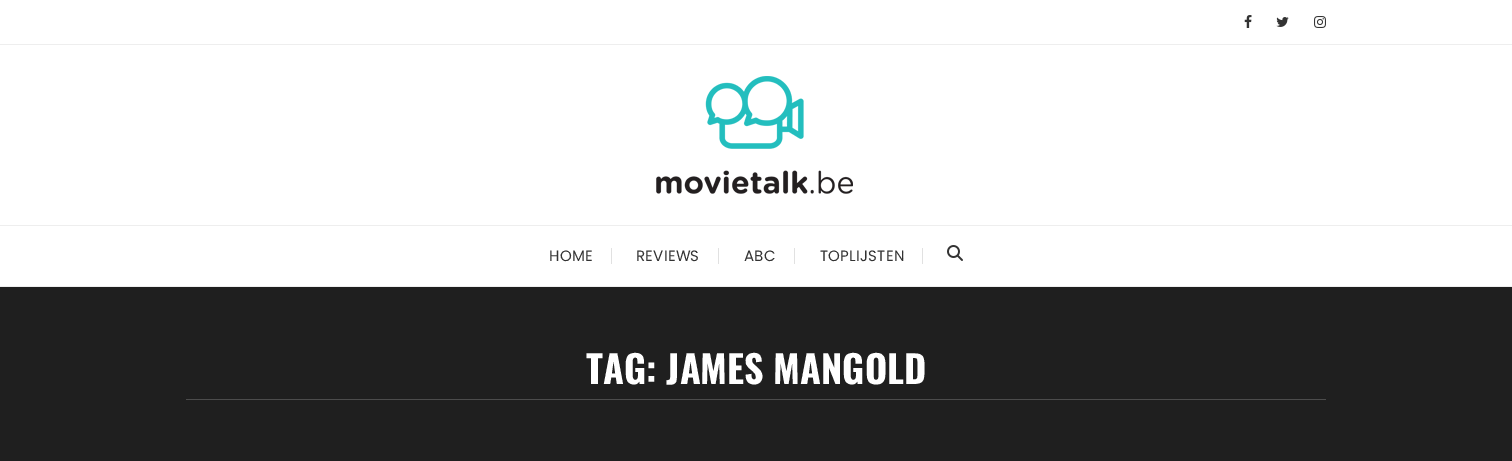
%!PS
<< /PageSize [1512 461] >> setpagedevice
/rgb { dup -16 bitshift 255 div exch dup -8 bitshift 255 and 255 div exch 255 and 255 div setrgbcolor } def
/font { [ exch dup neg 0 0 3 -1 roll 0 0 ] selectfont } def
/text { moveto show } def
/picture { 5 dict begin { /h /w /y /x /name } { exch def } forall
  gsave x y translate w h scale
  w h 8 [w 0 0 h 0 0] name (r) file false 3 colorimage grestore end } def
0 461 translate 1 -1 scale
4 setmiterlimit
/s1 { /Oswald-Bold 38 font 16#FFFFFF rgb } def
16#FFFFFF rgb
0 0 1512 461 rectfill
16#EEEEEE rgb
0 44 1512 1 rectfill
(pic1.raw) 1244 15 8 13 picture
(pic2.raw) 1276 17 13 10 picture
(pic3.raw) 1314 16 12 12 picture
(pic4.raw) 656 76 197 118 picture
0 225 1512 1 rectfill
0 286 1512 1 rectfill
/Poppins-Regular 15 font
16#333333 rgb
549 261 moveto 0.25 0 (HOME) ashow
16#E1E1E1 rgb
611 248 1 16 rectfill
16#333333 rgb
636 261 moveto 0.25 0 (REVIEWS) ashow
16#E1E1E1 rgb
718 248 1 16 rectfill
16#333333 rgb
744 261 moveto 0.25 0 (ABC) ashow
16#E1E1E1 rgb
794 248 1 16 rectfill
16#333333 rgb
820 261 moveto 0.25 0 (TOPLIJSTEN) ashow
16#E1E1E1 rgb
922 248 1 16 rectfill
(pic5.raw) 947 245 16 16 picture
16#1F1F1F rgb
0 287 1512 174 rectfill
16#4C4C4C rgb
186 399 1140 1 rectfill
s1
(TAG: JAMES MANGOLD) 586 384 text
showpage
